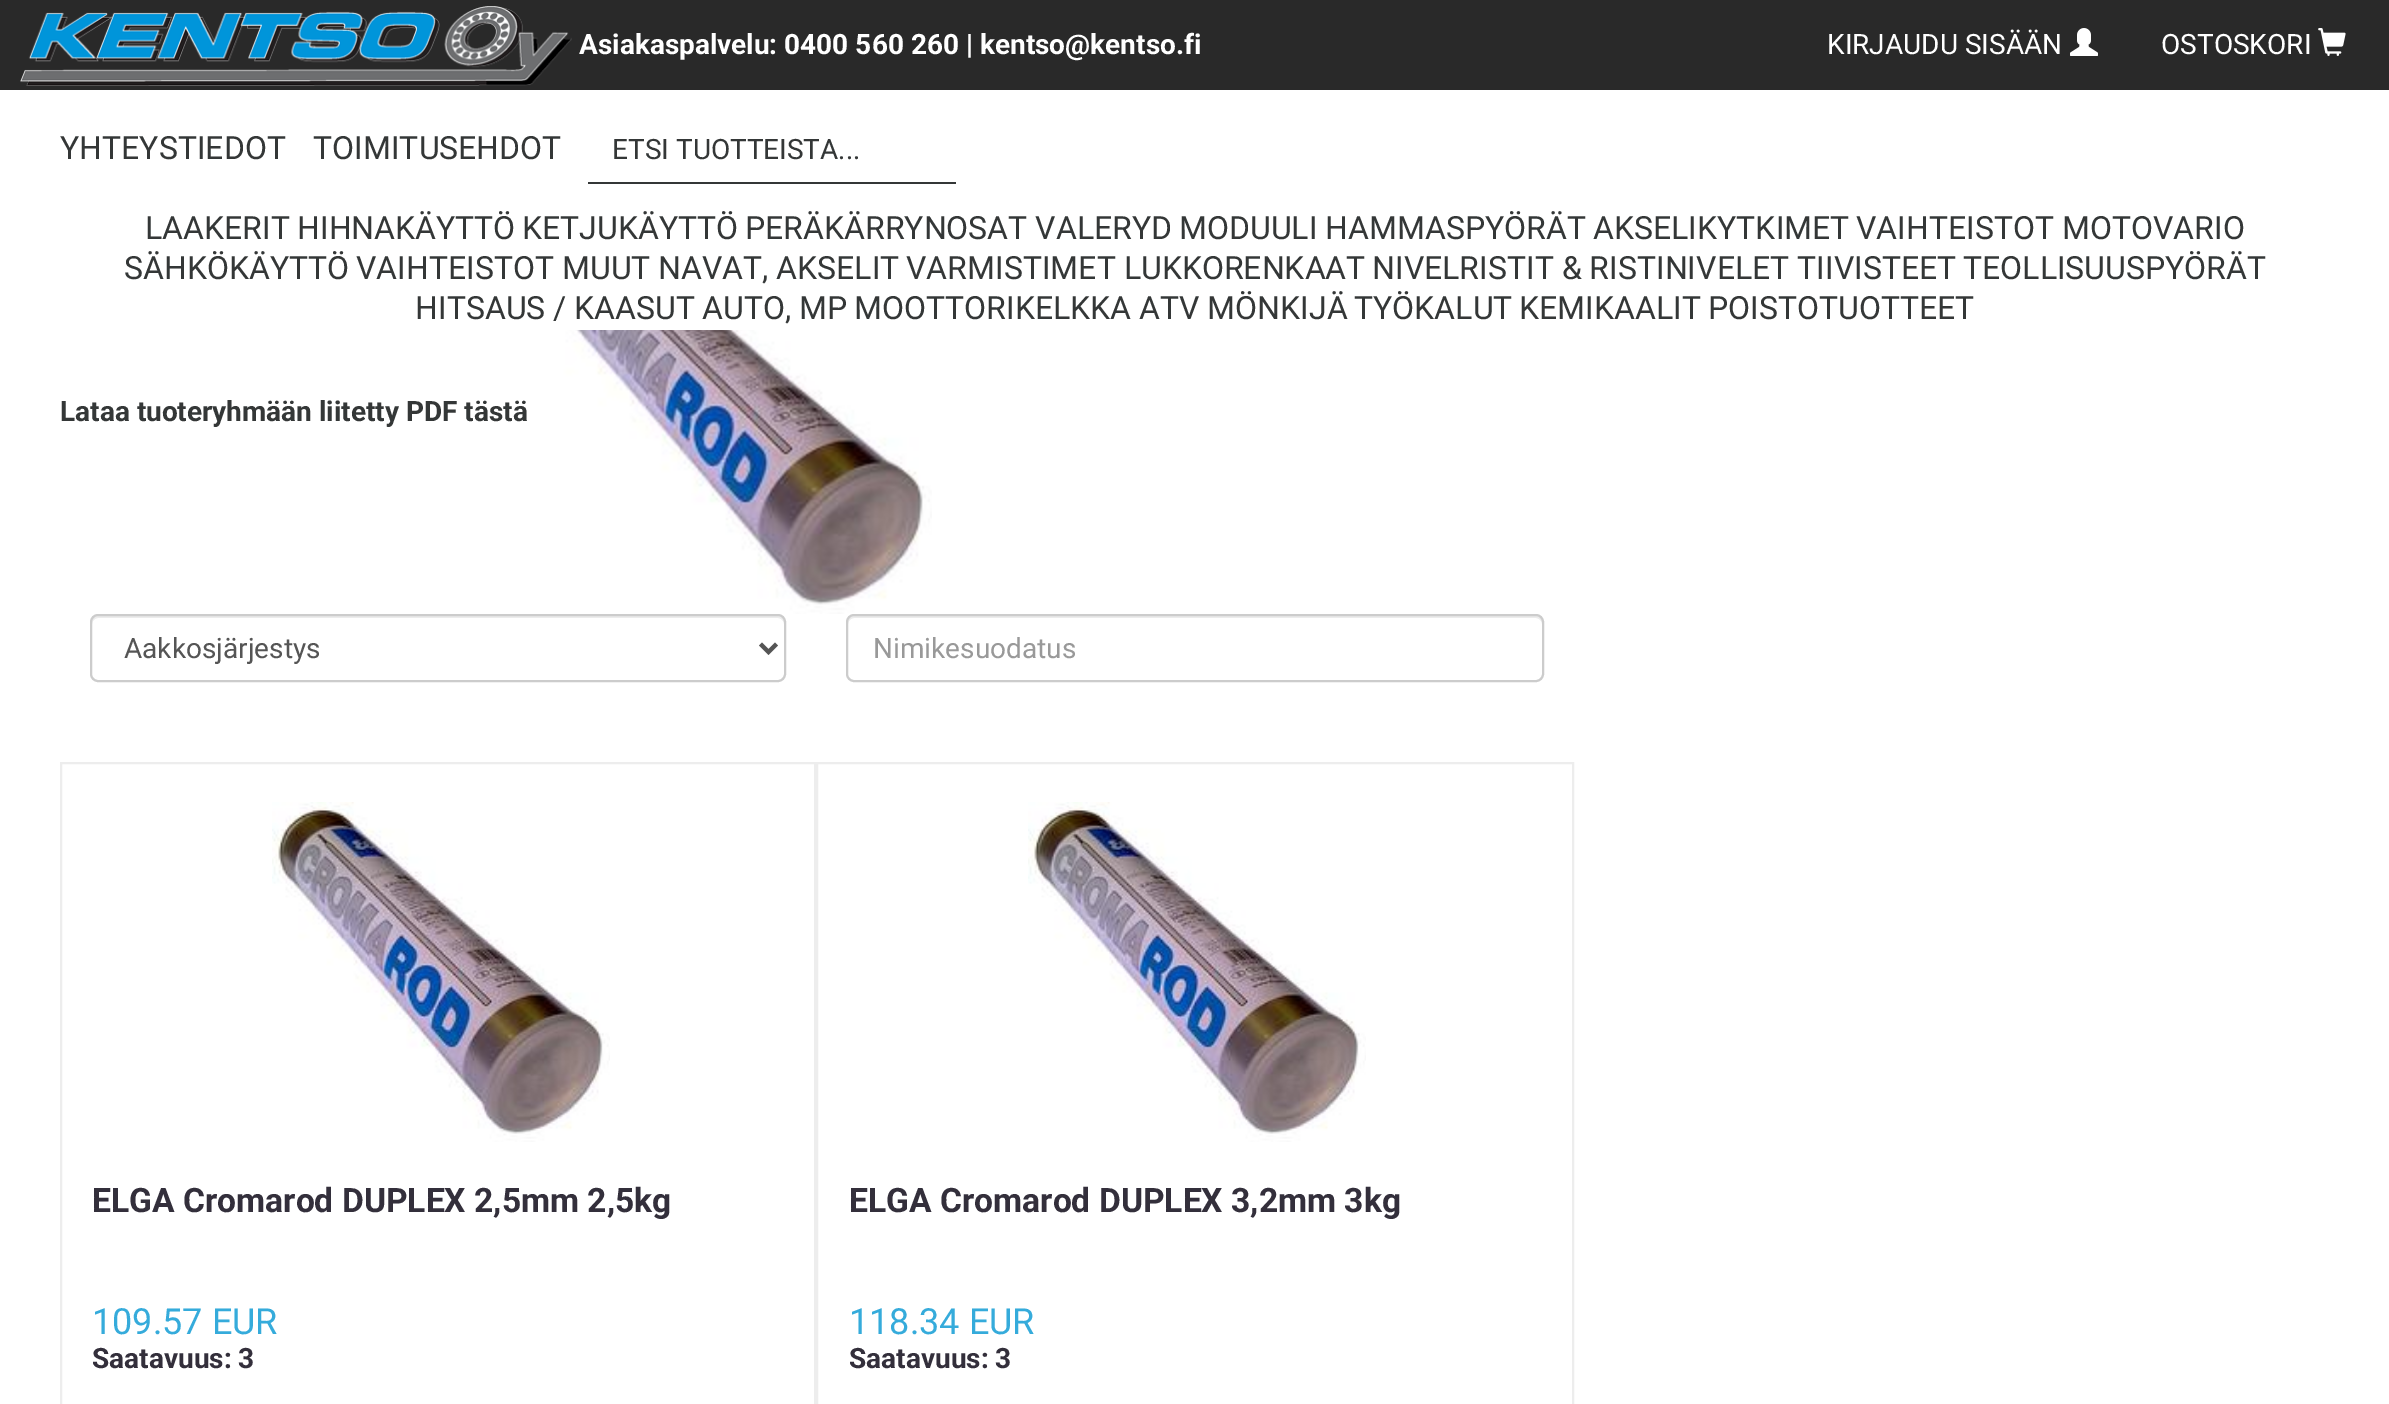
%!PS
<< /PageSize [2389 1404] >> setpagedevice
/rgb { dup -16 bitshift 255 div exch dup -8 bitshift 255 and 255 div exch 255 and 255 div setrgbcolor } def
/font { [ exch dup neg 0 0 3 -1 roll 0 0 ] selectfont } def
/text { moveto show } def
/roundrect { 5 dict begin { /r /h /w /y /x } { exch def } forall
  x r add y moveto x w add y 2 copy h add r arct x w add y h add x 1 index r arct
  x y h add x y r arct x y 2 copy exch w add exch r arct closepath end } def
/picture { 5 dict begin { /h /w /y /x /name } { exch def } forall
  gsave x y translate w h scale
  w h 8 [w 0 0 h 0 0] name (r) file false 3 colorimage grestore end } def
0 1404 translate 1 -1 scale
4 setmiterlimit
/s1 { /Roboto-Bold 28 font 16#FFFFFF rgb } def
/s2 { /Roboto-Regular 28 font 16#FFFFFF rgb } def
/s3 { /Roboto-Regular 32 font 16#343737 rgb } def
/s4 { /Roboto-Regular 28 font 16#343737 rgb } def
/s5 { /Roboto-Bold 28 font 16#343737 rgb } def
/s6 { /Roboto-Regular 28 font 16#555555 rgb } def
/s7 { /Roboto-Regular 28 font 16#999999 rgb } def
/s8 { /Roboto-Bold 33.6 font 16#332F3B rgb } def
/s9 { /Roboto-Regular 36 font 16#35ABDB rgb } def
/s10 { /Roboto-Bold 28 font 16#332F3B rgb } def
16#FFFFFF rgb
0 0 2389 1404 rectfill
16#292929 rgb
0 0 2389 90 rectfill
(pic1.raw) 20 6 552 80 picture
s1
(Asiakaspalvelu: 0400 560 260 | kentso@kentso.fi) 579 54 text
s2
(KIRJAUDU SISÄÄN) 1827 54 text
(pic2.raw) 2070 28 28 28 picture
(OSTOSKORI) 2161 54 text
(pic3.raw) 2318 28 28 28 picture
s3
(YHTEYSTIEDOT) 60 159 text
(TOIMITUSEHDOT) 313 159 text
588 182 368 2 rectfill
s4
(ETSI TUOTTEISTA...) 612 159 text
s3
(LAAKERIT) 145 239 text
(HIHNAKÄYTTÖ) 297 239 text
(KETJUKÄYTTÖ) 522 239 text
(PERÄKÄRRYNOSAT VALERYD) 745 239 text
(MODUULI HAMMASPYÖRÄT) 1179 239 text
(AKSELIKYTKIMET) 1593 239 text
(VAIHTEISTOT MOTOVARIO) 1856 239 text
(SÄHKÖKÄYTTÖ) 124 279 text
(VAIHTEISTOT MUUT) 356 279 text
(NAVAT, AKSELIT) 658 279 text
(VARMISTIMET LUKKORENKAAT) 906 279 text
(NIVELRISTIT & RISTINIVELET) 1372 279 text
(TIIVISTEET) 1797 279 text
(TEOLLISUUSPYÖRÄT) 1963 279 text
(HITSAUS / KAASUT) 415 319 text
(AUTO, MP) 702 319 text
(MOOTTORIKELKKA) 854 319 text
(ATV MÖNKIJÄ) 1139 319 text
(TYÖKALUT) 1354 319 text
(KEMIKAALIT) 1519 319 text
(POISTOTUOTTEET) 1708 319 text
s5
(Lataa tuoteryhmään liitetty PDF tästä) 60 421 text
(pic4.raw) 534 330 398 284 picture
16#ECECEC rgb
98 618 moveto 778 618 lineto 781 618 784 621 784 624 curveto 784 622 lineto 784 619 781 616 778 616 curveto 98 616 lineto 95 616 92 619 92 622 curveto 92 624 lineto 92 621 95 618 98 618 curveto closepath fill
16#CCCCCC rgb
2 setlinewidth
91 615 694 66 7 roundrect stroke
16#555555 rgb
4 setlinewidth
760.5 644 moveto 768.5 652 lineto 776.5 644 lineto stroke
s6
(Aakkosjärjestys) 124 658 text
16#ECECEC rgb
854 618 moveto 1536 618 lineto 1539 618 1542 621 1542 624 curveto 1542 622 lineto 1542 619 1539 616 1536 616 curveto 854 616 lineto 851 616 848 619 848 622 curveto 848 624 lineto 848 621 851 618 854 618 curveto closepath fill
16#CCCCCC rgb
2 setlinewidth
847 615 696 66 7 roundrect stroke
s7
(Nimikesuodatus) 873 658 text
16#EDEDED rgb
61 763 754 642 rectstroke
(pic5.raw) 272 802 338 340 picture
s8
(ELGA Cromarod DUPLEX 2,5mm 2,5kg) 92 1212 text
s9
(109.57 EUR) 92 1334 text
s10
(Saatavuus: 3) 92 1368 text
16#EDEDED rgb
817 763 756 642 rectstroke
(pic6.raw) 1028 802 338 340 picture
s8
(ELGA Cromarod DUPLEX 3,2mm 3kg) 849 1212 text
s9
(118.34 EUR) 849 1334 text
s10
(Saatavuus: 3) 849 1368 text
showpage
